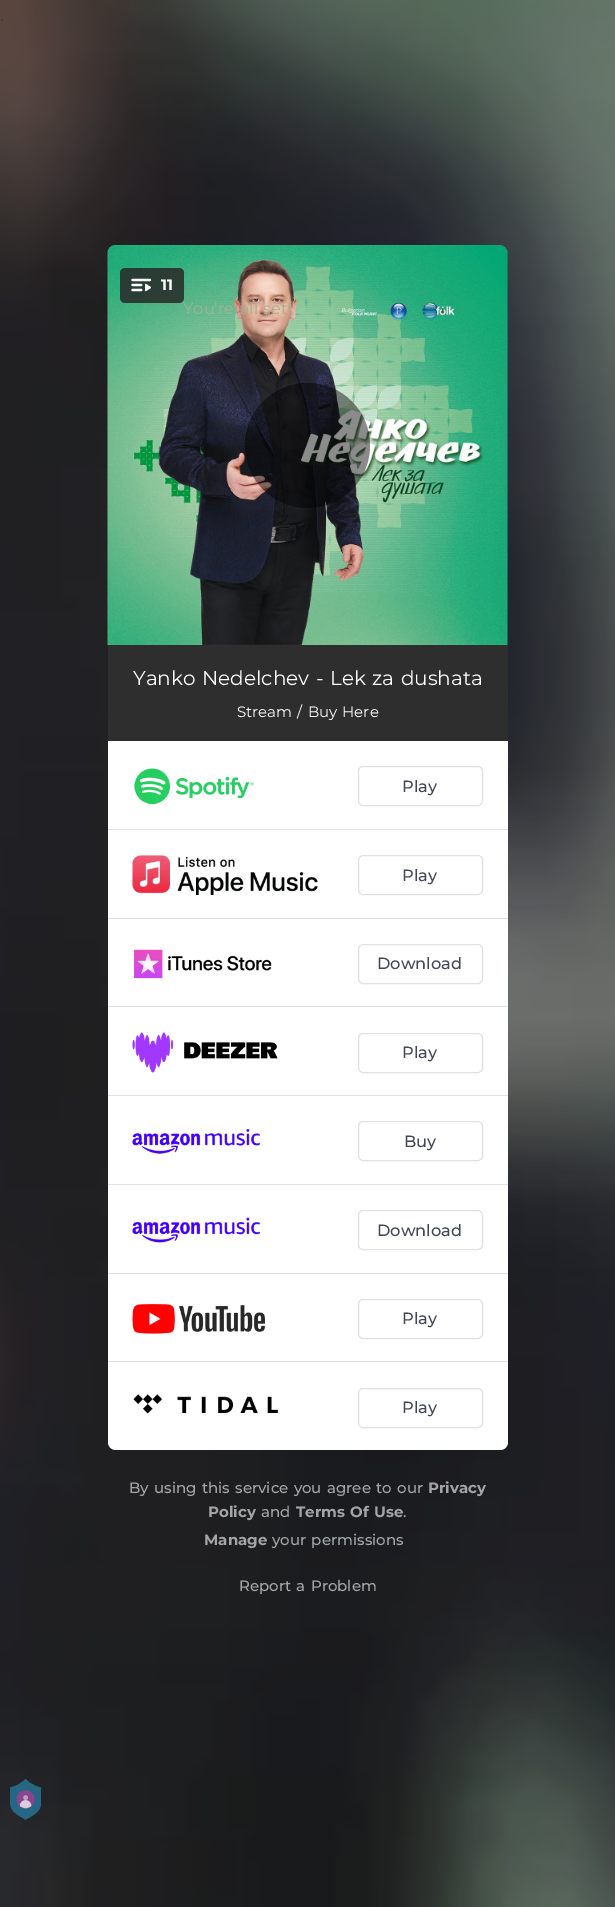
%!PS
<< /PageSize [615 1907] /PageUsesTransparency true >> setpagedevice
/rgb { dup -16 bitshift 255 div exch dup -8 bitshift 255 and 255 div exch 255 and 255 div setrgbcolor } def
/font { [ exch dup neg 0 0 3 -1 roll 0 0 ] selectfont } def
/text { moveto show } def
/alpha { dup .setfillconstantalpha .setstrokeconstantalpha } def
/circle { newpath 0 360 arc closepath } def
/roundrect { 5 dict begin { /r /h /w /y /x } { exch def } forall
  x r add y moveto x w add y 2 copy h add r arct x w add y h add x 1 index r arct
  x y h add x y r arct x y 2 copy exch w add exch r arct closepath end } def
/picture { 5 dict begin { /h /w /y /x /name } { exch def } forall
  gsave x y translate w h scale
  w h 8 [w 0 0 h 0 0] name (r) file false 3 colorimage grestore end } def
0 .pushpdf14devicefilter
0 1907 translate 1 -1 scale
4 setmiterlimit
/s1 { /Montserrat-Bold 15 font 16#FFFFFF rgb } def
/s2 { /Montserrat-Medium 16.25 font 16#414754 rgb } def
/s3 { /Montserrat-Bold 15 font 16#A4A5A6 rgb } def
/s4 { /Montserrat-Medium 15 font 16#A4A5A6 rgb } def
16#FFFFFF rgb
0 0 615 1907 rectfill
(pic1.raw) 0 0 615 1907 picture
(pic2.raw) 107 245 401 400 picture
/Montserrat-Regular 16.25 font
16#A2B092 rgb
183 314 moveto 1.25 0 32 (You're all set!) widthshow
0.85 alpha
16#282828 rgb
120 268 64 35 5 roundrect fill
1 alpha
(pic3.raw) 131 278 20 14 picture
s1
(11) 161 290 text
0.45 alpha
16#000000 rgb
307.5 445.5 62.5 circle fill
1 alpha
16#2E2E2E rgb
108 645 400 96 rectfill
/Montserrat-Regular 20 font
16#FFFFFF rgb
133 685 moveto 1.25 0 32 (Yanko Nedelchev - Lek za dushata) widthshow
/Montserrat-Regular 15 font
237 717 moveto 1.25 0 32 (Stream / Buy Here) widthshow
108 741 moveto 508 741 lineto 508 1442 lineto 508 1446.5 504.5 1450 500 1450 curveto 116 1450 lineto 111.5 1450 108 1446.5 108 1442 curveto closepath fill
16#E1E1E4 rgb
108 829 400 1 rectfill
(pic4.raw) 134 768 120 37 picture
358.5 766.5 124 39 4.5 roundrect stroke
s2
(Play) 402 792 text
16#E1E1E4 rgb
108 918 400 1 rectfill
(pic5.raw) 132 855 186 40 picture
358.5 855.5 124 39 4.5 roundrect stroke
s2
(Play) 402 881 text
16#E1E1E4 rgb
108 1006 400 1 rectfill
(pic6.raw) 133 949 139 30 picture
358.5 944.5 124 39 4.5 roundrect stroke
s2
(Download) 377 969 text
16#E1E1E4 rgb
108 1095 400 1 rectfill
(pic7.raw) 132 1032 146 41 picture
358.5 1033.5 124 39 4.5 roundrect stroke
s2
(Play) 402 1058 text
16#E1E1E4 rgb
108 1184 400 1 rectfill
(pic8.raw) 132 1128 128 26 picture
358.5 1121.5 124 39 4.5 roundrect stroke
s2
(Buy) 404 1147 text
16#E1E1E4 rgb
108 1273 400 1 rectfill
(pic9.raw) 132 1217 128 26 picture
358.5 1210.5 124 39 4.5 roundrect stroke
s2
(Download) 377 1236 text
16#E1E1E4 rgb
108 1361 400 1 rectfill
(pic10.raw) 132 1303 133 31 picture
358.5 1299.5 124 39 4.5 roundrect stroke
s2
(Play) 402 1324 text
(pic11.raw) 133 1394 145 20 picture
16#E1E1E4 rgb
358.5 1388.5 124 39 4.5 roundrect stroke
s2
(Play) 402 1413 text
/Montserrat-Medium 15 font
16#A4A5A6 rgb
129 1493 moveto 1.25 0 32 (By using this service you agree to our) widthshow
s3
(Privacy) 428 1493 text
(Policy) 208 1517 text
s4
(and) 261 1517 text
/Montserrat-Bold 15 font
296 1517 moveto 1.25 0 32 (Terms Of Use) widthshow
s4
(.) 403 1517 text
s3
(Manage) 204 1545 text
/Montserrat-Medium 15 font
272 1545 moveto 1.25 0 32 (your permissions) widthshow
239 1591 moveto 1.25 0 32 (Report a Problem) widthshow
(pic12.raw) 10 1779 31 41 picture
.poppdf14devicefilter showpage
